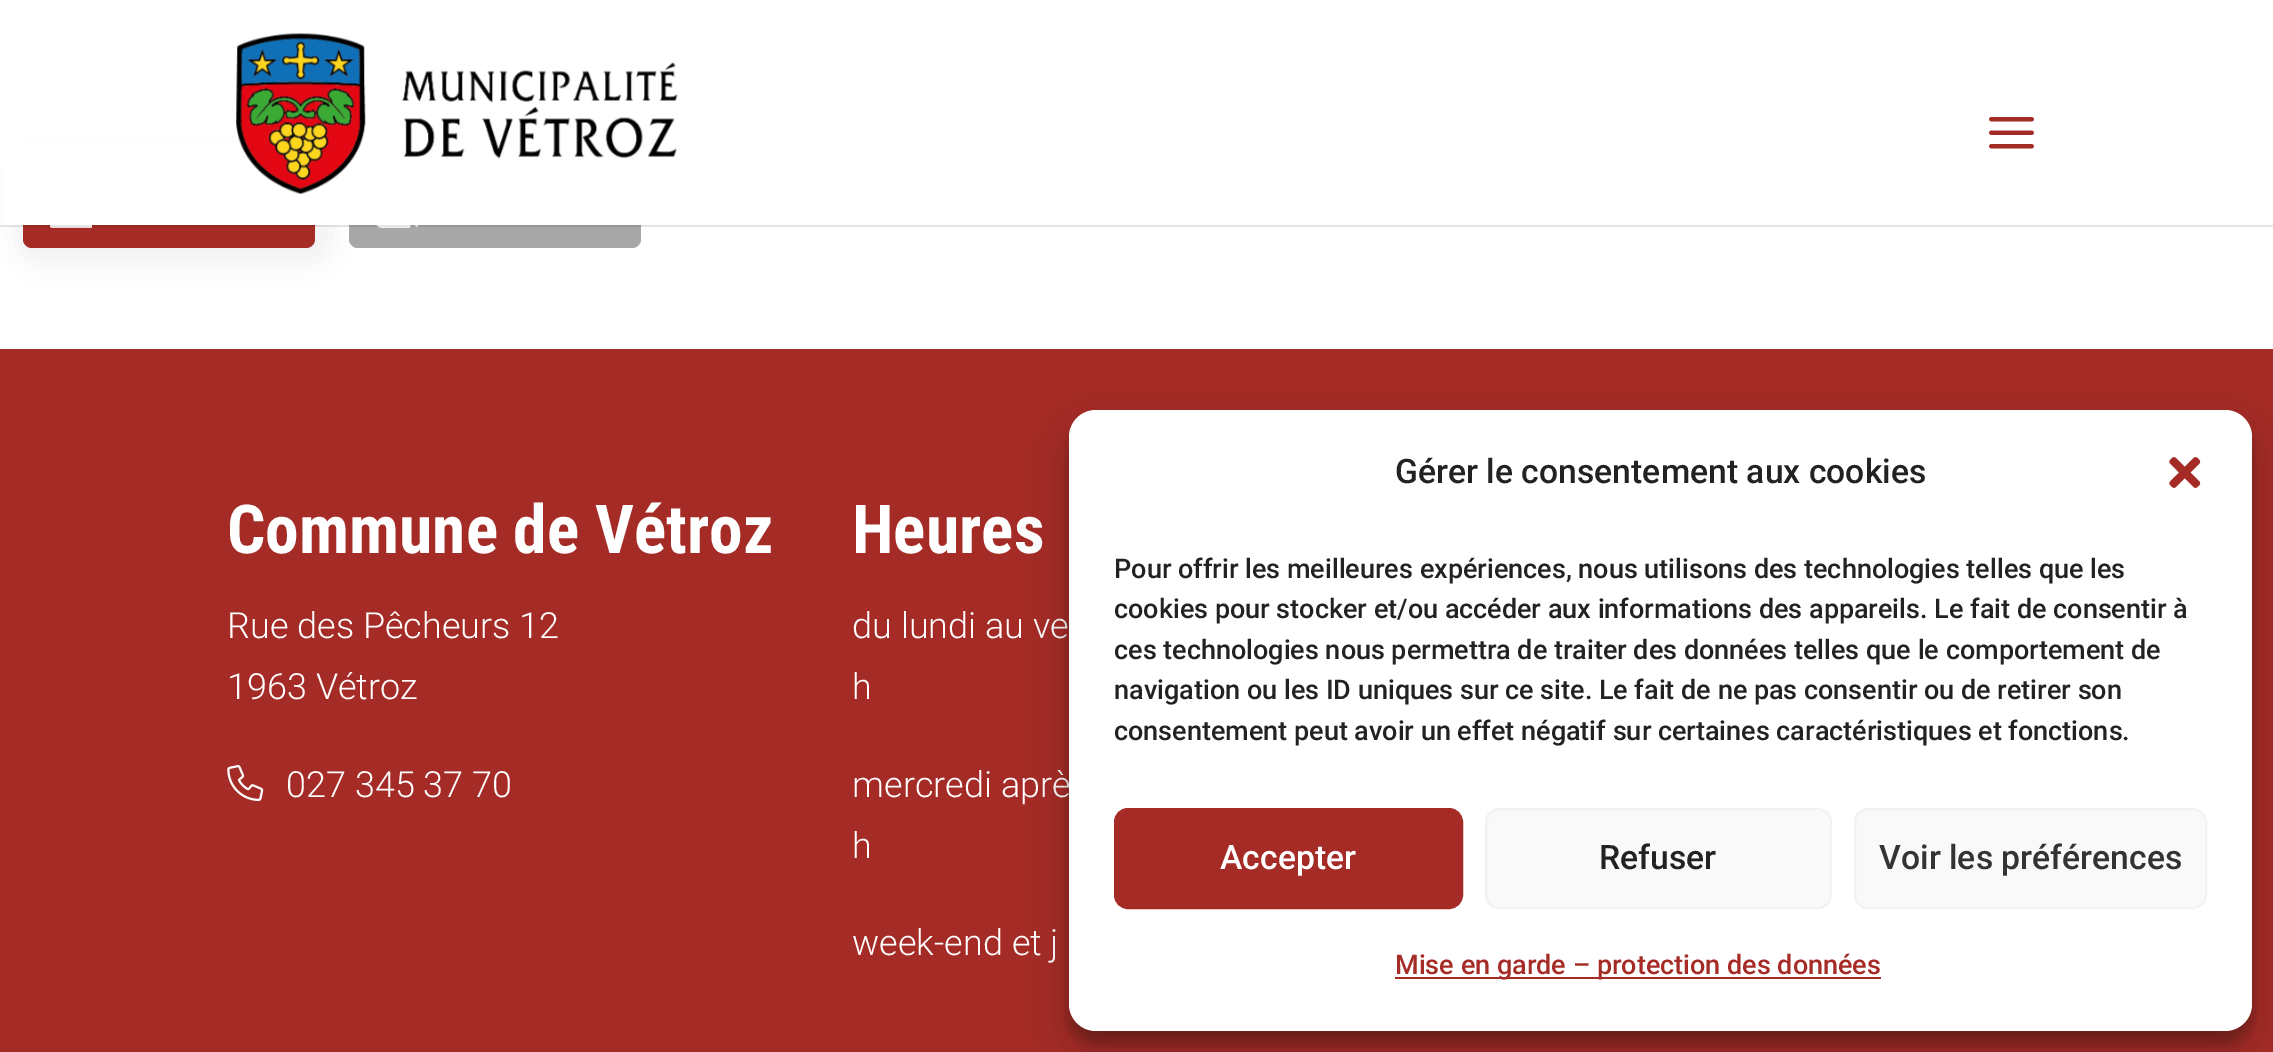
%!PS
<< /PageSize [2273 1052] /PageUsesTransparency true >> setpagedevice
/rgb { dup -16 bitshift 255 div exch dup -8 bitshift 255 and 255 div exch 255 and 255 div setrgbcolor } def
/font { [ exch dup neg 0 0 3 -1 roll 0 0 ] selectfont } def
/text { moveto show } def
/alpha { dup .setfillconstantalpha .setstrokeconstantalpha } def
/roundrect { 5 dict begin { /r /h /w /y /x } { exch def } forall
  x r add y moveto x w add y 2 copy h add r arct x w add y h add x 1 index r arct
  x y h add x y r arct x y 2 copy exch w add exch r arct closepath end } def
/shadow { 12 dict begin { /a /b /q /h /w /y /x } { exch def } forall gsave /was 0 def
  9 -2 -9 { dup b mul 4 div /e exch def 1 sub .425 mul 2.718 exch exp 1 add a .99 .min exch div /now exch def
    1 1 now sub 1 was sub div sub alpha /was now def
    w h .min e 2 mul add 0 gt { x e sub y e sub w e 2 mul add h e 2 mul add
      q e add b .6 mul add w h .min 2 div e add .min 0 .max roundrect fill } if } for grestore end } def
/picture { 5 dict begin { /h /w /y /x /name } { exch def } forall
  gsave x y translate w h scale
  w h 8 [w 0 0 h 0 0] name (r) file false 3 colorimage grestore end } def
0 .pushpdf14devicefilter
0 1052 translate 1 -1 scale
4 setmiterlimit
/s1 { /RobotoCondensed-Bold 67.5 font 16#FFFFFF rgb } def
/s2 { /Roboto-Light 36 font 16#FFFFFF rgb } def
/s3 { /Roboto-Medium 33.75 font 16#222222 rgb } def
/s4 { /Roboto-Medium 27 font 16#222222 rgb } def
/s5 { /Roboto-Medium 33.75 font 16#FFFFFF rgb } def
/s6 { /Roboto-Medium 33.75 font 16#333333 rgb } def
/s7 { /Roboto-Medium 27 font 16#A52B26 rgb } def
16#FFFFFF rgb
0 0 2273 1052 rectfill
16#F0F0F0 rgb
16 158 315 105 20 13.5 1 shadow
16#A52B26 rgb
23 164 292 84 9 roundrect fill
(pic3.raw) 50 225 42 3 picture
16#A7A7A7 rgb
349 164 292 84 9 roundrect fill
(pic4.raw) 376 225 43 3 picture
0.1 alpha
16#000000 rgb
0 225 moveto 0 227 lineto 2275 227 lineto 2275 2 lineto 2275 225 lineto closepath fill
1 alpha
16#FFFFFF rgb
3 145 638 80 rectfill
(pic1.raw) 236 33 442 161 picture
(pic2.raw) 1989 117 45 32 picture
16#A52B26 rgb
0 349 2273 703 rectfill
s1
(Commune de Vétroz) 227 553 text
s2
(Rue des Pêcheurs 12) 227 638 text
(1963 Vétroz) 227 699 text
(pic5.raw) 227 765 37 36 picture
(027 345 37 70) 286 797 text
s1
(Heures) 852 553 text
s2
(du lundi au ve) 852 638 text
(h) 852 699 text
(mercredi aprè) 852 797 text
(h) 852 858 text
(week-end et j) 852 955 text
16#000000 rgb
1069 423 1183 621 27 7 0.23 shadow
1069 432 1183 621 27 22.5 0.19 shadow
16#FFFFFF rgb
1069 410 1183 621 27 roundrect fill
s3
(Gérer le consentement aux cookies) 1395 483 text
(pic6.raw) 2169 457 32 31 picture
s4
(Pour offrir les meilleures expériences, nous utilisons des technologies telles que les) 1114 578 text
(cookies pour stocker et/ou accéder aux informations des appareils. Le fait de consentir à) 1114 618 text
(ces technologies nous permettra de traiter des données telles que le comportement de) 1114 659 text
(navigation ou les ID uniques sur ce site. Le fait de ne pas consentir ou de retirer son) 1114 699 text
(consentement peut avoir un effet négatif sur certaines caractéristiques et fonctions.) 1114 740 text
16#A52B26 rgb
1115 809 347 99 13 roundrect gsave fill grestore
2 setlinewidth
stroke
s5
(Accepter) 1220 869 text
16#F9F9F9 rgb
1486 809 345 99 13 roundrect gsave fill grestore
16#F2F2F2 rgb
stroke
s3
(Refuser) 1599 869 text
16#F9F9F9 rgb
1855 809 351 99 13 roundrect gsave fill grestore
16#F2F2F2 rgb
stroke
s6
(Voir les préférences) 1879 869 text
16#A52B26 rgb
1395 977 486 2 rectfill
s7
(Mise en garde – protection des données) 1395 974 text
.poppdf14devicefilter showpage
